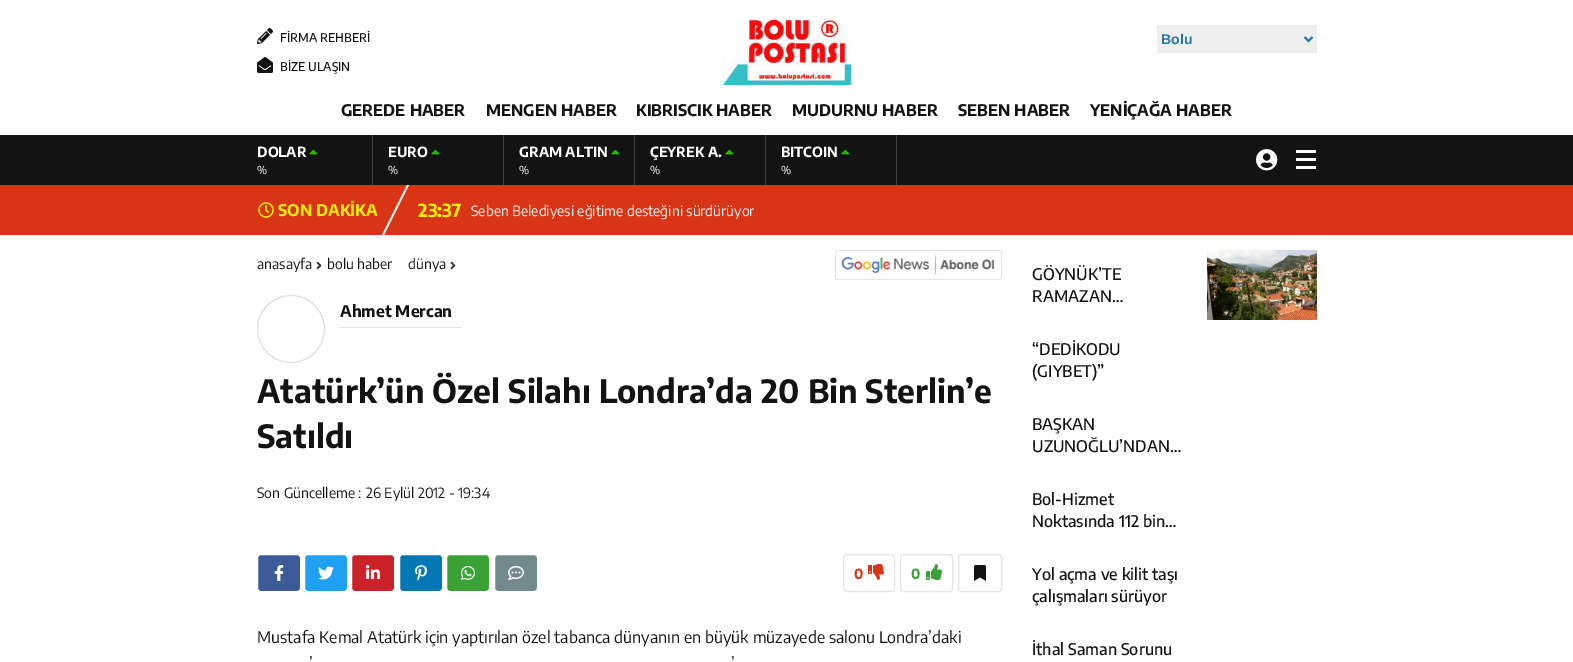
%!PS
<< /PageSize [1573 662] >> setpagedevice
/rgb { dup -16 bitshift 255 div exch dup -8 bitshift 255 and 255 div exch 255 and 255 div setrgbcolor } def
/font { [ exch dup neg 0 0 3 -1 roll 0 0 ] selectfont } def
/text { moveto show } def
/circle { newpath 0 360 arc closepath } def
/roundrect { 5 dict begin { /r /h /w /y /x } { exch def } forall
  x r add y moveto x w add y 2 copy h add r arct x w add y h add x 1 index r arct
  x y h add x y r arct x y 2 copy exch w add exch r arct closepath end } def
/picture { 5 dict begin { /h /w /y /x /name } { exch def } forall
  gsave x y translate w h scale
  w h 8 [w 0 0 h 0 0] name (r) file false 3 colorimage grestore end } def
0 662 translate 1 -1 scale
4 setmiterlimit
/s1 { /EncodeSans-Medium 12 font 16#131313 rgb } def
/s2 { /LiberationSans-Bold 14 font 16#2279A7 rgb } def
/s3 { /EncodeSans-Bold 16 font 16#131313 rgb } def
/s4 { /EncodeSans-Bold 14 font 16#FFFFFF rgb } def
/s5 { /EncodeSans-Regular 11 font 16#FFFFFF rgb } def
/s6 { /EncodeSans-Bold 16 font 16#FFF100 rgb } def
/s7 { /EncodeSans-Bold 18 font 16#FFF100 rgb } def
/s8 { /EncodeSans-Regular 14 font 16#FFFFFF rgb } def
/s9 { /EncodeSans-Regular 14 font 16#131313 rgb } def
/s10 { /EncodeSans-Bold 32 font 16#131313 rgb } def
/s11 { /EncodeSans-Bold 14 font 16#D73516 rgb } def
/s12 { /EncodeSans-Bold 14 font 16#3BA335 rgb } def
/s13 { /EncodeSans-Regular 16 font 16#131313 rgb } def
/s14 { /EncodeSans-Medium 16 font 16#131313 rgb } def
16#FFFFFF rgb
0 0 1573 662 rectfill
(pic1.raw) 257 28 16 16 picture
s1
(FİRMA REHBERİ) 280 42 text
(pic2.raw) 257 57 16 16 picture
(BİZE ULAŞIN) 280 71 text
(pic3.raw) 722 17 132 68 picture
16#EFEFEF rgb
1157 25 160 28 rectfill
16#2279A7 rgb
2 setlinewidth
1304.5 37 moveto 1308.5 41 lineto 1312.5 37 lineto stroke
s2
(Bolu) 1161 44 text
s3
(GEREDE HABER) 341 116 text
(MENGEN HABER) 486 116 text
(KIBRISCIK HABER) 636 116 text
(MUDURNU HABER) 792 116 text
(SEBEN HABER) 958 116 text
(YENİÇAĞA HABER) 1090 116 text
0 135 1573 50 rectfill
16#424242 rgb
372 135 1 50 rectfill
s4
(DOLAR) 257 157 text
(pic4.raw) 309 149 9 6 picture
s5
(%) 257 174 text
16#424242 rgb
503 135 1 50 rectfill
s4
(EURO) 388 157 text
(pic4.raw) 431 149 9 6 picture
s5
(%) 388 174 text
16#424242 rgb
634 135 1 50 rectfill
s4
(GRAM ALTIN) 519 157 text
(pic4.raw) 611 149 9 6 picture
s5
(%) 519 174 text
16#424242 rgb
765 135 1 50 rectfill
s4
(ÇEYREK A.) 650 157 text
(pic4.raw) 725 149 9 6 picture
s5
(%) 650 174 text
16#424242 rgb
896 135 1 50 rectfill
s4
(BITCOIN) 781 157 text
(pic4.raw) 841 149 9 6 picture
s5
(%) 781 174 text
(pic5.raw) 1256 149 22 22 picture
1296 158 20 3 rectfill
1296 150 20 3 rectfill
1296 166 20 3 rectfill
16#D73516 rgb
0 185 1573 50 rectfill
(pic6.raw) 258 202 16 16 picture
s6
(SON DAKİKA) 278 216 text
16#FFFFFF rgb
407 185 moveto 409 185 lineto 384 235 lineto 382 235 lineto closepath fill
s7
(23:37) 418 217 text
s8
(Seben Belediyesi eğitime desteğini sürdürüyor) 471 216 text
s9
(anasayfa) 257 269 text
(pic7.raw) 316 261 6 9 picture
(bolu haber) 327 269 text
(dünya) 408 269 text
(pic7.raw) 450 261 6 9 picture
(pic8.raw) 835 250 167 30 picture
16#E2DFD8 rgb
1 setlinewidth
291 329 33.5 circle stroke
16#E4E4E4 rgb
340 327 122 1 rectfill
s3
(Ahmet Mercan) 340 317 text
s10
(Atatürk’ün Özel Silahı Londra’da 20 Bin Sterlin’e) 257 403 text
(Satıldı) 257 448 text
s9
(Son Güncelleme :) 257 498 text
(26 Eylül 2012 - 19:34) 366 498 text
16#3C5A98 rgb
257.5 554.5 43 37 3.5 roundrect gsave fill grestore
16#FFFFFF rgb
stroke
(pic9.raw) 274 565 10 16 picture
16#1EA1F2 rgb
304.5 554.5 43 37 3.5 roundrect gsave fill grestore
16#FFFFFF rgb
stroke
(pic10.raw) 318 566 16 14 picture
16#CB2128 rgb
351.5 554.5 43 37 3.5 roundrect gsave fill grestore
16#FFFFFF rgb
stroke
(pic11.raw) 366 565 14 14 picture
16#0177B5 rgb
399.5 554.5 43 37 3.5 roundrect gsave fill grestore
16#FFFFFF rgb
stroke
(pic12.raw) 415 565 12 16 picture
16#3BA335 rgb
446.5 554.5 43 37 3.5 roundrect gsave fill grestore
16#FFFFFF rgb
stroke
(pic13.raw) 461 566 14 14 picture
16#738A8D rgb
494.5 554.5 43 37 3.5 roundrect gsave fill grestore
16#FFFFFF rgb
stroke
(pic14.raw) 508 566 16 14 picture
16#E4E4E4 rgb
843.5 554.5 51 37 3.5 roundrect stroke
s11
(0) 854 579 text
(pic15.raw) 868 564 16 16 picture
16#E4E4E4 rgb
900.5 554.5 52 37 3.5 roundrect stroke
s12
(0) 911 579 text
(pic16.raw) 926 564 16 16 picture
16#E4E4E4 rgb
958.5 554.5 43 37 3.5 roundrect stroke
(pic17.raw) 974 565 12 16 picture
s13
(Mustafa Kemal Atatürk için yaptırılan özel tabanca dünyanın en büyük müzayede salonu Londra’daki) 257 643 text
(’) 309 669 text
(’) 731 669 text
s14
(GÖYNÜK’TE) 1032 280 text
(RAMAZAN…) 1032 302 text
(pic18.raw) 1207 250 110 70 picture
(“DEDİKODU) 1032 355 text
(\(GIYBET\)”) 1032 377 text
(BAŞKAN) 1032 430 text
(UZUNOĞLU’NDAN…) 1032 452 text
(Bol-Hizmet) 1032 505 text
(Noktasında 112 bin…) 1032 527 text
(Yol açma ve kilit taşı) 1032 580 text
(çalışmaları sürüyor) 1032 602 text
(İthal Saman Sorunu) 1032 655 text
showpage
